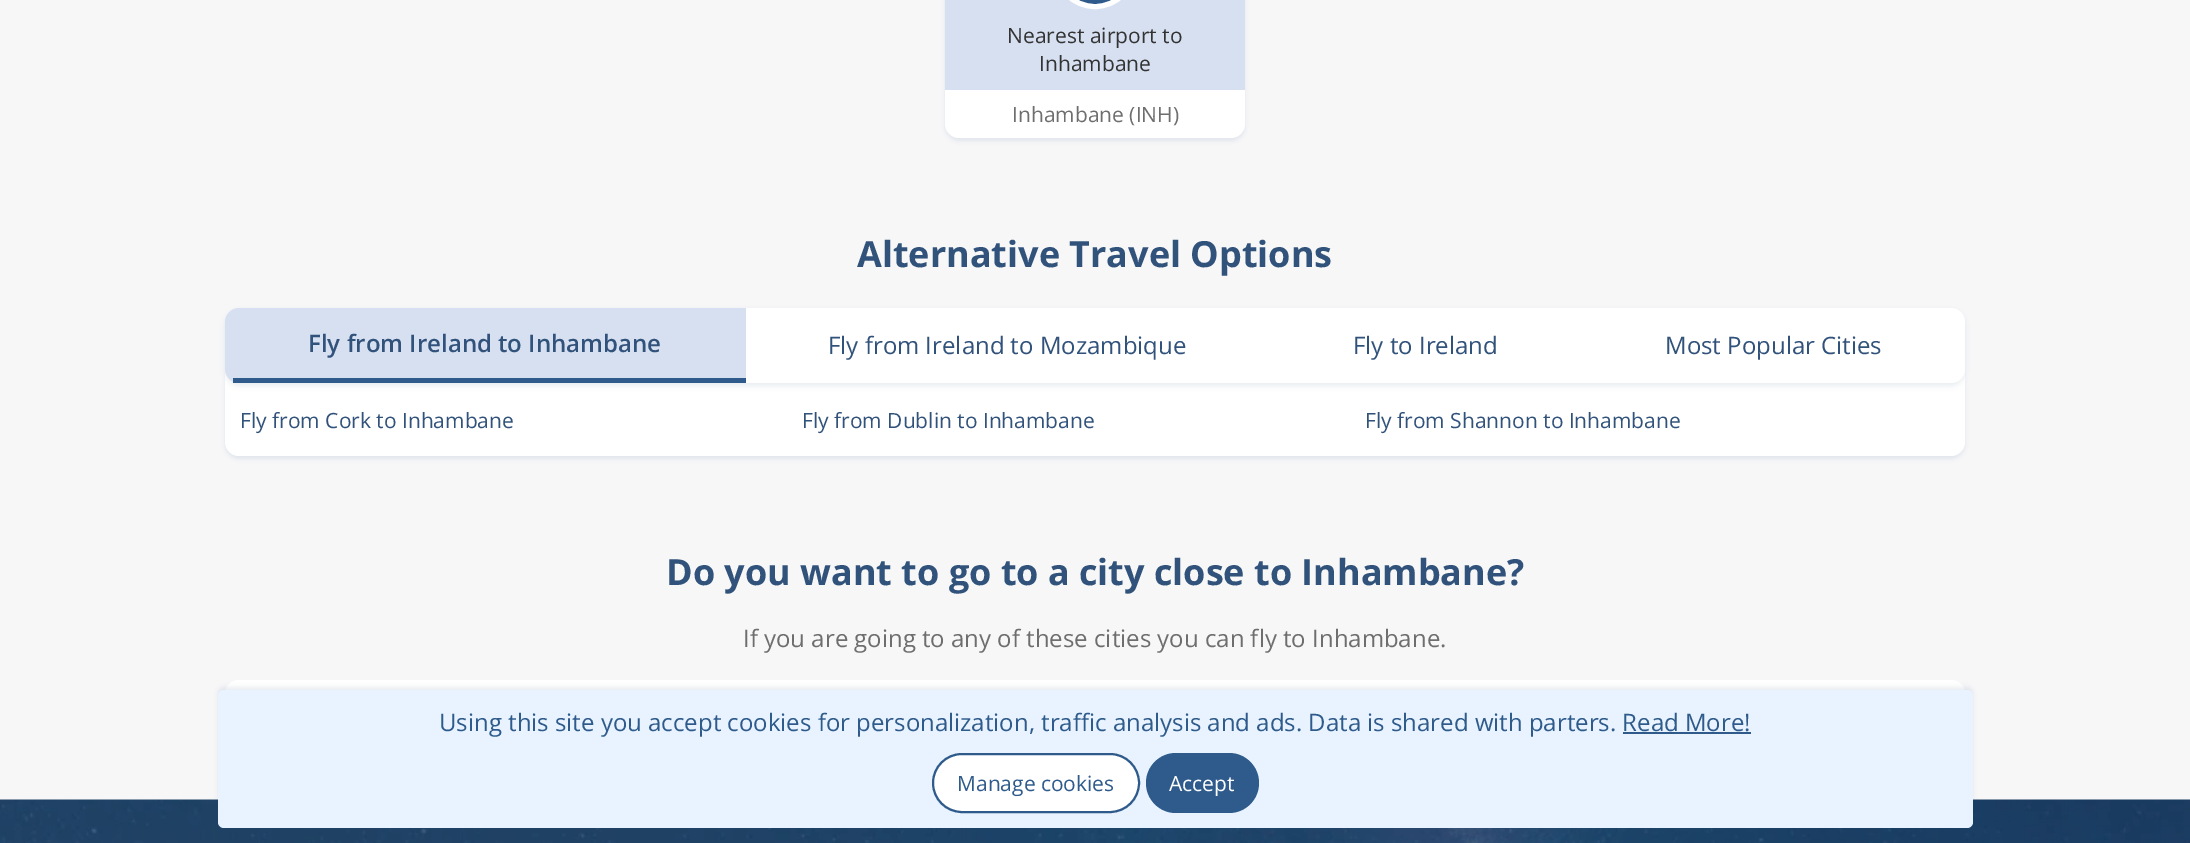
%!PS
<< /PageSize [2190 843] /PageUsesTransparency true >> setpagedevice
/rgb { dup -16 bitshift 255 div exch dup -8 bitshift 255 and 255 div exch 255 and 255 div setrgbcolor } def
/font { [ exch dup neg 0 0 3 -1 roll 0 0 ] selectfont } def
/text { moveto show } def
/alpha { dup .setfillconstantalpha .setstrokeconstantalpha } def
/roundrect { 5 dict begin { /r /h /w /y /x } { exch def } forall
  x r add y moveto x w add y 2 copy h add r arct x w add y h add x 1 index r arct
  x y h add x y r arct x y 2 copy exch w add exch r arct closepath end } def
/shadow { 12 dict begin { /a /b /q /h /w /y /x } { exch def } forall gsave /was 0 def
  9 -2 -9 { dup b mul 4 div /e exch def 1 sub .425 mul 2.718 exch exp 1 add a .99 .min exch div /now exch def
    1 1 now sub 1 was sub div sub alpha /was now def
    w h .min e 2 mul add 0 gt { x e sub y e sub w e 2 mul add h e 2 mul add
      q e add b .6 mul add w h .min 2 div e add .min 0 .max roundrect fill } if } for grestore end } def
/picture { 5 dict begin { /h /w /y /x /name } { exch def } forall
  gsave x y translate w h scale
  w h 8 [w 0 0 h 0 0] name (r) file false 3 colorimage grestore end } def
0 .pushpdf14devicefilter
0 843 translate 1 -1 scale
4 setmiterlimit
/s1 { /OpenSans-Regular 21 font 16#333333 rgb } def
/s2 { /OpenSans-Regular 21 font 16#6E6E6E rgb } def
/s3 { /OpenSans-Bold 36 font 16#31527A rgb } def
/s4 { /OpenSans-SemiBold 24 font 16#31527A rgb } def
/s5 { /OpenSans-Regular 24 font 16#31527A rgb } def
/s6 { /OpenSans-Regular 21 font 16#31527A rgb } def
/s7 { /OpenSans-Regular 24 font 16#6E6E6E rgb } def
/s8 { /OpenSans-Regular 24 font 16#2E5B8B rgb } def
/s9 { /OpenSans-Regular 21 font 16#2E5B8B rgb } def
/s10 { /OpenSans-Regular 21 font 16#FFFFFF rgb } def
16#F7F7F7 rgb
0 0 2190 843 rectfill
16#31527A rgb
945 -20 300 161 14 2 0.1 shadow
16#D6E0F1 rgb
945 0 300 90 rectfill
16#2E5B8B rgb
1055.5 -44.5 79 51 39.5 roundrect gsave fill grestore
16#FFFFFF rgb
5 setlinewidth
stroke
s1
(Nearest airport to) 1007 43 text
(Inhambane) 1039 71 text
16#FFFFFF rgb
945 90 moveto 1245 90 lineto 1245 124 lineto 1245 131.5 1238.5 138 1231 138 curveto 959 138 lineto 951.5 138 945 131.5 945 124 curveto closepath fill
s2
(Inhambane \(INH\)) 1012 122 text
s3
(Alternative Travel Options) 857 267 text
225 371 1740 88 14 2 0.1 shadow
16#FFFFFF rgb
225 368 moveto 1965 368 lineto 1965 442 lineto 1965 449.5 1958.5 456 1951 456 curveto 239 456 lineto 231.5 456 225 449.5 225 442 curveto closepath fill
16#31527A rgb
225 311 1740 75 14 2.5 0.1 shadow
16#D6E0F1 rgb
239 308 moveto 746 308 lineto 746 383 lineto 239 383 lineto 231.5 383 225 376.5 225 369 curveto 225 322 lineto 225 314.5 231.5 308 239 308 curveto closepath fill
16#2E5B8B rgb
233 378 513 5 rectfill
s4
(Fly from Ireland to Inhambane) 308 352 text
16#FFFFFF rgb
746 308 835 75 rectfill
s5
(Fly from Ireland to Mozambique) 828 354 text
(Fly to Ireland) 1353 354 text
16#FFFFFF rgb
1581 308 moveto 1951 308 lineto 1958.5 308 1965 314.5 1965 322 curveto 1965 369 lineto 1965 376.5 1958.5 383 1951 383 curveto 1581 383 lineto closepath fill
s5
(Most Popular Cities) 1665 354 text
s6
(Fly from Cork to Inhambane) 240 428 text
(Fly from Dublin to Inhambane) 802 428 text
(Fly from Shannon to Inhambane) 1365 428 text
s3
(Do you want to go to a city close to Inhambane?) 666 585 text
s7
(If you are going to any of these cities you can fly to Inhambane.) 743 647 text
16#FFFFFF rgb
225 680 1740 60 14 roundrect fill
(pic1.raw) 0 799 2190 44 picture
16#31527A rgb
218 687 1755 138 6 2 0.1 shadow
16#E8F3FF rgb
218 690 1755 138 6 roundrect fill
s8
(Using this site you accept cookies for personalization, traffic analysis and ads. Data is shared with parters. Read More!) 439 731 text
1623 732 128 2 rectfill
16#FFFFFF rgb
933 754 206 58 29 roundrect gsave fill grestore
16#2E5B8B rgb
2 setlinewidth
stroke
s9
(Manage cookies) 957 791 text
1146 753 113 60 30 roundrect fill
s10
(Accept) 1169 791 text
.poppdf14devicefilter showpage
